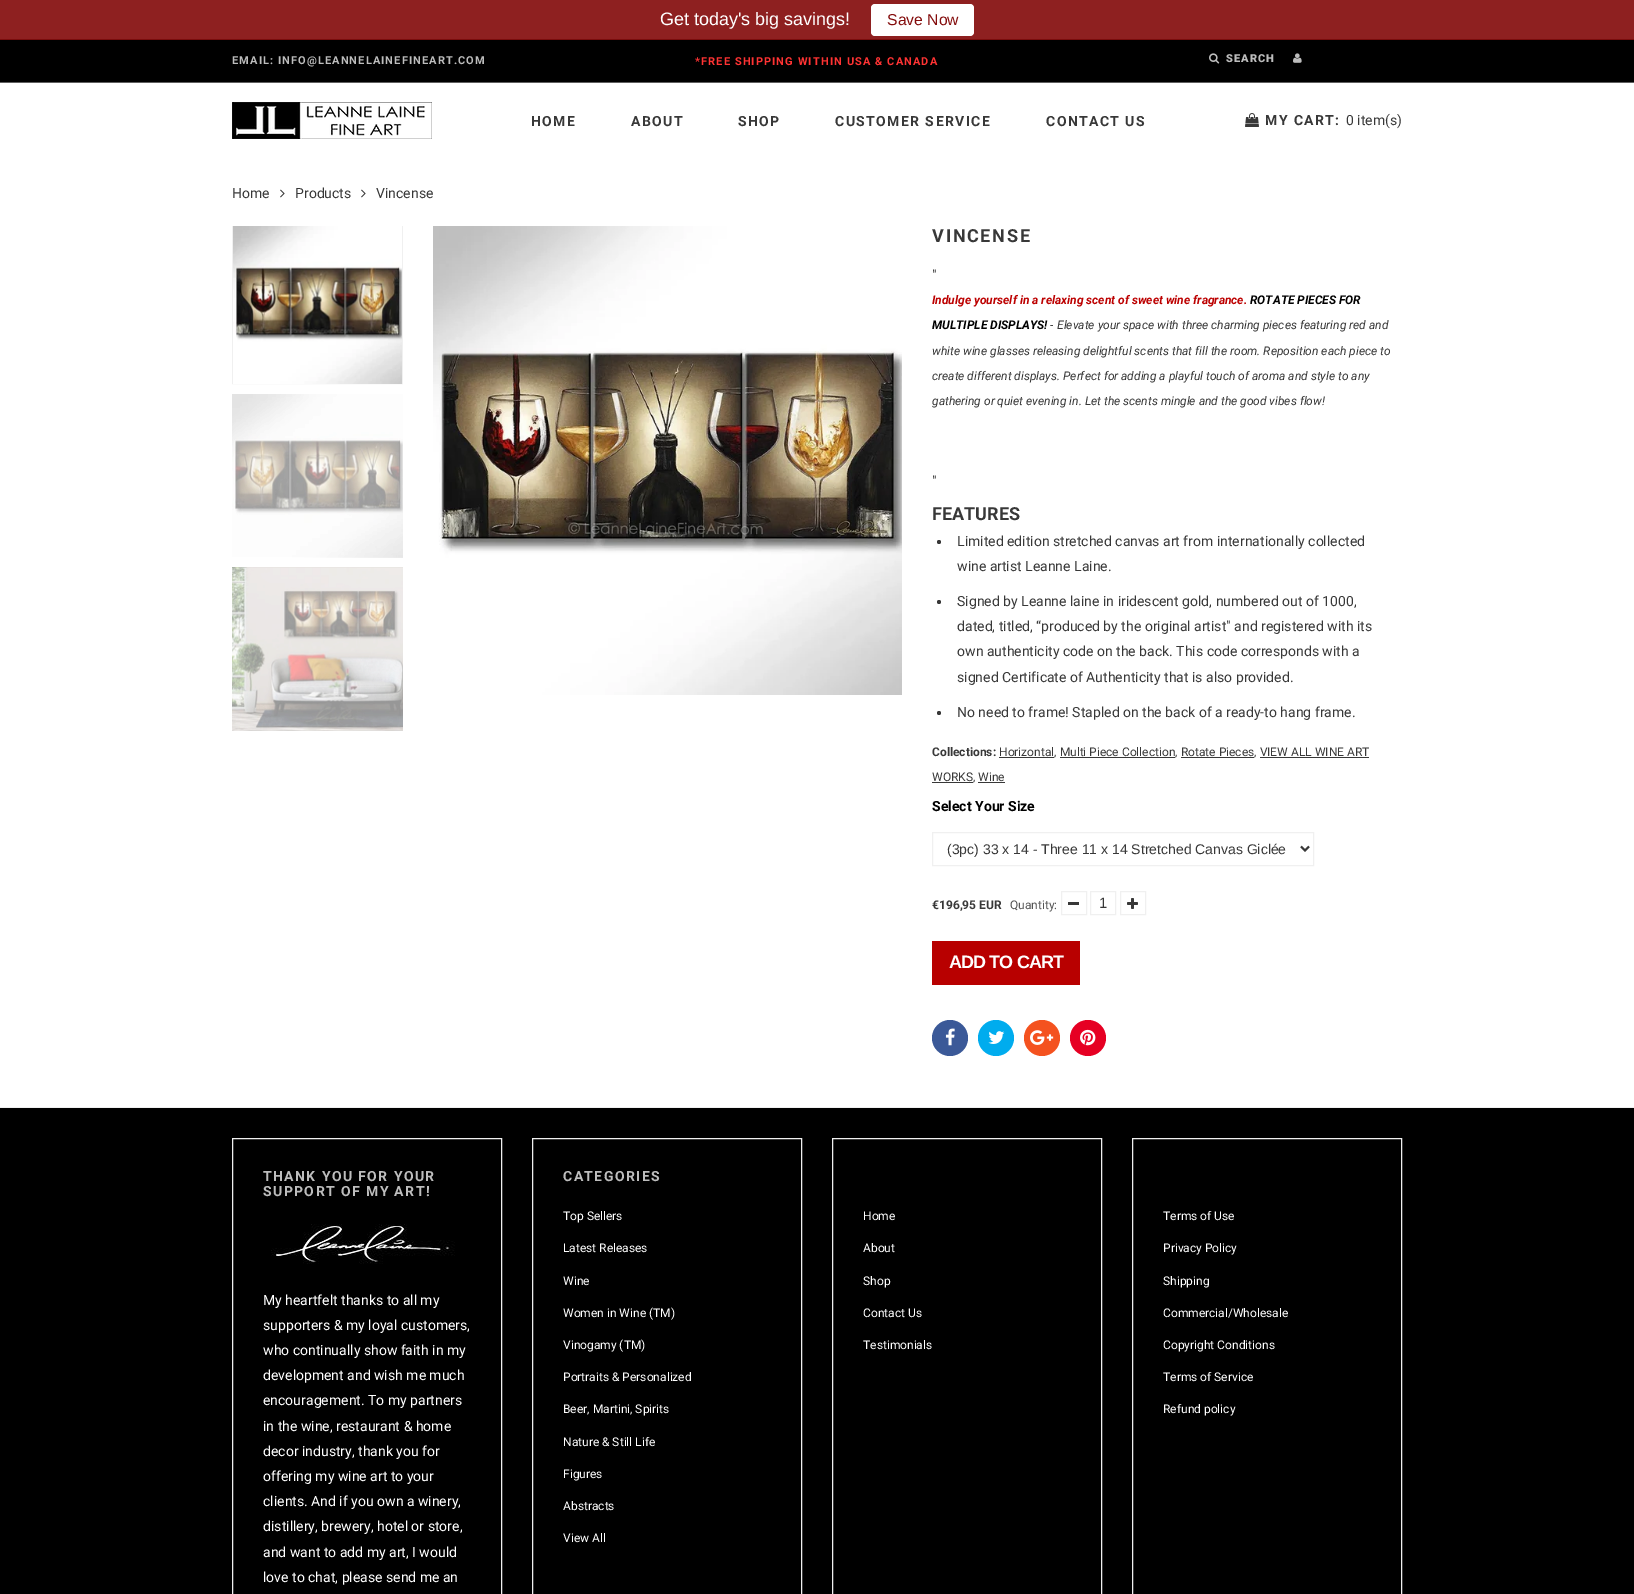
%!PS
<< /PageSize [1634 1594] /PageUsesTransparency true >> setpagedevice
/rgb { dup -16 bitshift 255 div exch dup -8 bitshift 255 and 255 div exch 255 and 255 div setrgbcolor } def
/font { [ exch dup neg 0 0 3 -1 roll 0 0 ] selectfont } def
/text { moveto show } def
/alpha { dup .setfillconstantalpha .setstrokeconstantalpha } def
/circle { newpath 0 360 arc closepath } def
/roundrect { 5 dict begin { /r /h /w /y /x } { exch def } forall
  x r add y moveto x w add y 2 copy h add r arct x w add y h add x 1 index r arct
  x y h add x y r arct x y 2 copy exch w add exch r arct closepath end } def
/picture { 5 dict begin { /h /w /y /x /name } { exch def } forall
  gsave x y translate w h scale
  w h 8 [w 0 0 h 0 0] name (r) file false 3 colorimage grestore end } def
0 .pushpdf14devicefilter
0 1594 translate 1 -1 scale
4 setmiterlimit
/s1 { /LiberationSans-Regular 18 font 16#FFFFFF rgb } def
/s2 { /LiberationSans-Regular 15.75 font 16#840D0D rgb } def
/s3 { /Roboto-Regular 14 font 16#383838 rgb } def
/s4 { /Roboto-BoldItalic 12 font 16#BC0000 rgb } def
/s5 { /Roboto-BoldItalic 12 font 16#000000 rgb } def
/s6 { /Roboto-Italic 12 font 16#000000 rgb } def
/s7 { /Roboto-Italic 12 font 16#383838 rgb } def
/s8 { /Roboto-Bold 18 font 16#383838 rgb } def
/s9 { /Roboto-Bold 12 font 16#383838 rgb } def
/s10 { /Roboto-Regular 12 font 16#383838 rgb } def
/s11 { /Roboto-Bold 14 font 16#000000 rgb } def
/s12 { /LiberationSans-Regular 14 font 16#383838 rgb } def
/s13 { /Roboto-Regular 12 font 16#555555 rgb } def
/s14 { /LiberationSans-Regular 15 font 16#383838 rgb } def
/s15 { /Roboto-Regular 14 font 16#FFFFFF rgb } def
/s16 { /Roboto-Regular 12 font 16#FFFFFF rgb } def
16#FFFFFF rgb
0 0 1634 1594 rectfill
16#000000 rgb
0 39 1634 43 rectfill
0.92 alpha
16#840D0D rgb
0 0 1634 40 rectfill
1 alpha
s1
(Get today's big savings!) 660 25 text
871 4 103 32 4 roundrect fill
s2
(Save Now) 887 25 text
16#606060 rgb
0 82 1634 1 rectfill
/Roboto-Bold 11 font
16#BDBDBD rgb
232 64 moveto 1.1 0 (EMAIL: INFO@LEANNELAINEFINEART.COM) ashow
16#FF3333 rgb
695 65 moveto 1.1 0 (*FREE SHIPPING WITHIN USA & CANADA) ashow
(pic1.raw) 1209 53 11 11 picture
/Roboto-Black 11 font
16#BDBDBD rgb
1226 62 moveto 1.1 0 (SEARCH) ashow
(pic2.raw) 1293 53 9 10 picture
(pic3.raw) 232 102 200 37 picture
/Roboto-Bold 14 font
16#383838 rgb
531 126 moveto 1.4 0 (HOME) ashow
631 126 moveto 1.4 0 (ABOUT) ashow
738 126 moveto 1.4 0 (SHOP) ashow
835 126 moveto 1.4 0 (CUSTOMER SERVICE) ashow
1046 126 moveto 1.4 0 (CONTACT US) ashow
(pic4.raw) 1245 113 14 14 picture
1265 125 moveto 1.4 0 (MY CART:) ashow
s3
(0 item\(s\)) 1346 125 text
(Home) 232 198 text
(pic5.raw) 280 189 5 9 picture
(Products) 295 198 text
(pic5.raw) 361 189 5 9 picture
(Vincense) 376 198 text
gsave
232 226 171 509 rectclip
16#F0F0F0 rgb
232.5 221.5 170 162 rectstroke
grestore
(pic6.raw) 233 226 169 158 picture
16#FBFBFB rgb
232 394 171 163 rectfill
(pic7.raw) 232 394 171 164 picture
232 567 171 163 rectfill
(pic8.raw) 232 567 171 164 picture
(pic9.raw) 433 226 469 469 picture
/Roboto-Bold 18 font
16#383838 rgb
932 242 moveto 1.75 0 (VINCENSE) ashow
s3
(") 932 280 text
s4
(Indulge yourself in a relaxing scent of sweet wine fragrance.) 932 304 text
s5
(ROTATE PIECES FOR) 1250 304 text
(MULTIPLE DISPLAYS!) 932 329 text
s6
(-) 1050 329 text
s7
(Elevate your space with three charming pieces featuring red and) 1057 329 text
(white wine glasses releasing delightful scents that fill the room. Reposition each piece to) 932 355 text
(create different displays. Perfect for adding a playful touch of aroma and style to any) 932 380 text
(gathering or quiet evening in. Let the scents mingle and the good vibes flow!) 932 405 text
s3
(") 932 486 text
s8
(FEATURES) 932 520 text
939 542 2 circle fill
s3
(Limited edition stretched canvas art from internationally collected) 957 546 text
(wine artist Leanne Laine.) 957 571 text
939 602 2 circle fill
(Signed by Leanne laine in iridescent gold, numbered out of 1000,) 957 606 text
(dated, titled, “produced by the original artist" and registered with its) 957 631 text
(own authenticity code on the back. This code corresponds with a) 957 656 text
(signed Certificate of Authenticity that is also provided.) 957 682 text
939 713 2 circle fill
(No need to frame! Stapled on the back of a ready-to hang frame.) 957 717 text
s9
(Collections:) 932 756 text
999 757 55 1 rectfill
s10
(Horizontal, Multi Piece Collection, Rotate Pieces, VIEW ALL WINE ART) 999 756 text
1060 757 115 1 rectfill
1181 757 73 1 rectfill
932 782 41 1 rectfill
(WORKS, Wine) 932 781 text
1260 757 109 1 rectfill
978 782 27 1 rectfill
s11
(Select Your Size) 932 811 text
16#F0F0F0 rgb
932.5 832.5 381 33 rectstroke
16#383838 rgb
2 setlinewidth
1301 846.5 moveto 1305 850.5 lineto 1309 846.5 lineto stroke
s12
(\(3pc\) 33 x 14 - Three 11 x 14 Stretched Canvas Giclée) 947 854 text
s9
(€196,95 EUR) 932 909 text
s13
(Quantity:) 1010 909 text
16#F0F0F0 rgb
1 setlinewidth
1061.5 891.5 25 23 rectstroke
16#383838 rgb
1068 902 11 3 rectfill
16#F0F0F0 rgb
1090.5 891.5 25 23 rectstroke
s14
(1) 1099 908 text
16#F0F0F0 rgb
1120.5 891.5 25 23 rectstroke
(pic10.raw) 1127 898 11 11 picture
16#B80000 rgb
932 941 148 44 rectfill
/LiberationSans-Bold 18 font
16#FFFFFF rgb
949 968 moveto -0.9 0 (ADD TO CART) ashow
16#3B5998 rgb
950 1038 18 circle fill
(pic11.raw) 945 1028 10 18 picture
16#00ACEE rgb
996 1038 18 circle fill
(pic12.raw) 988 1031 17 13 picture
16#F4521F rgb
1042 1038 18 circle fill
(pic13.raw) 1030 1030 24 15 picture
16#E60023 rgb
1088 1038 18 circle fill
(pic14.raw) 1080 1029 16 17 picture
16#000000 rgb
0 1108 1634 486 rectfill
16#F0F0F0 rgb
0 1107 1634 1 rectfill
232.5 1138.5 269 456 rectstroke
/Roboto-Bold 14 font
16#BDBDBD rgb
263 1181 moveto 1.4 0 (THANK YOU FOR YOUR) ashow
263 1196 moveto 1.4 0 (SUPPORT OF MY ART!) ashow
(pic15.raw) 271 1224 184 40 picture
s15
(My heartfelt thanks to all my) 263 1305 text
(supporters & my loyal customers,) 263 1330 text
(who continually show faith in my) 263 1355 text
(development and wish me much) 263 1380 text
(encouragement. To my partners) 263 1405 text
(in the wine, restaurant & home) 263 1431 text
(decor industry, thank you for) 263 1456 text
(offering my wine art to your) 263 1481 text
(clients. And if you own a winery,) 263 1506 text
(distillery, brewery, hotel or store,) 263 1531 text
(and want to add my art, I would) 263 1557 text
(love to chat, please send me an) 263 1582 text
16#F0F0F0 rgb
532.5 1138.5 269 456 rectstroke
/Roboto-Bold 14 font
16#BDBDBD rgb
563 1181 moveto 1.4 0 (CATEGORIES) ashow
s16
(Top Sellers) 563 1220 text
(Latest Releases) 563 1252 text
(Wine) 563 1285 text
(Women in Wine \(TM\)) 563 1317 text
(Vinogamy \(TM\)) 563 1349 text
(Portraits & Personalized) 563 1381 text
(Beer, Martini, Spirits) 563 1413 text
(Nature & Still Life) 563 1446 text
(Figures) 563 1478 text
(Abstracts) 563 1510 text
(View All) 563 1542 text
16#F0F0F0 rgb
832.5 1138.5 269 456 rectstroke
s16
(Home) 863 1220 text
(About) 863 1252 text
(Shop) 863 1285 text
(Contact Us) 863 1317 text
(Testimonials) 863 1349 text
16#F0F0F0 rgb
1132.5 1138.5 269 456 rectstroke
s16
(Terms of Use) 1163 1220 text
(Privacy Policy) 1163 1252 text
(Shipping) 1163 1285 text
(Commercial/Wholesale) 1163 1317 text
(Copyright Conditions) 1163 1349 text
(Terms of Service) 1163 1381 text
(Refund policy) 1163 1413 text
.poppdf14devicefilter showpage
